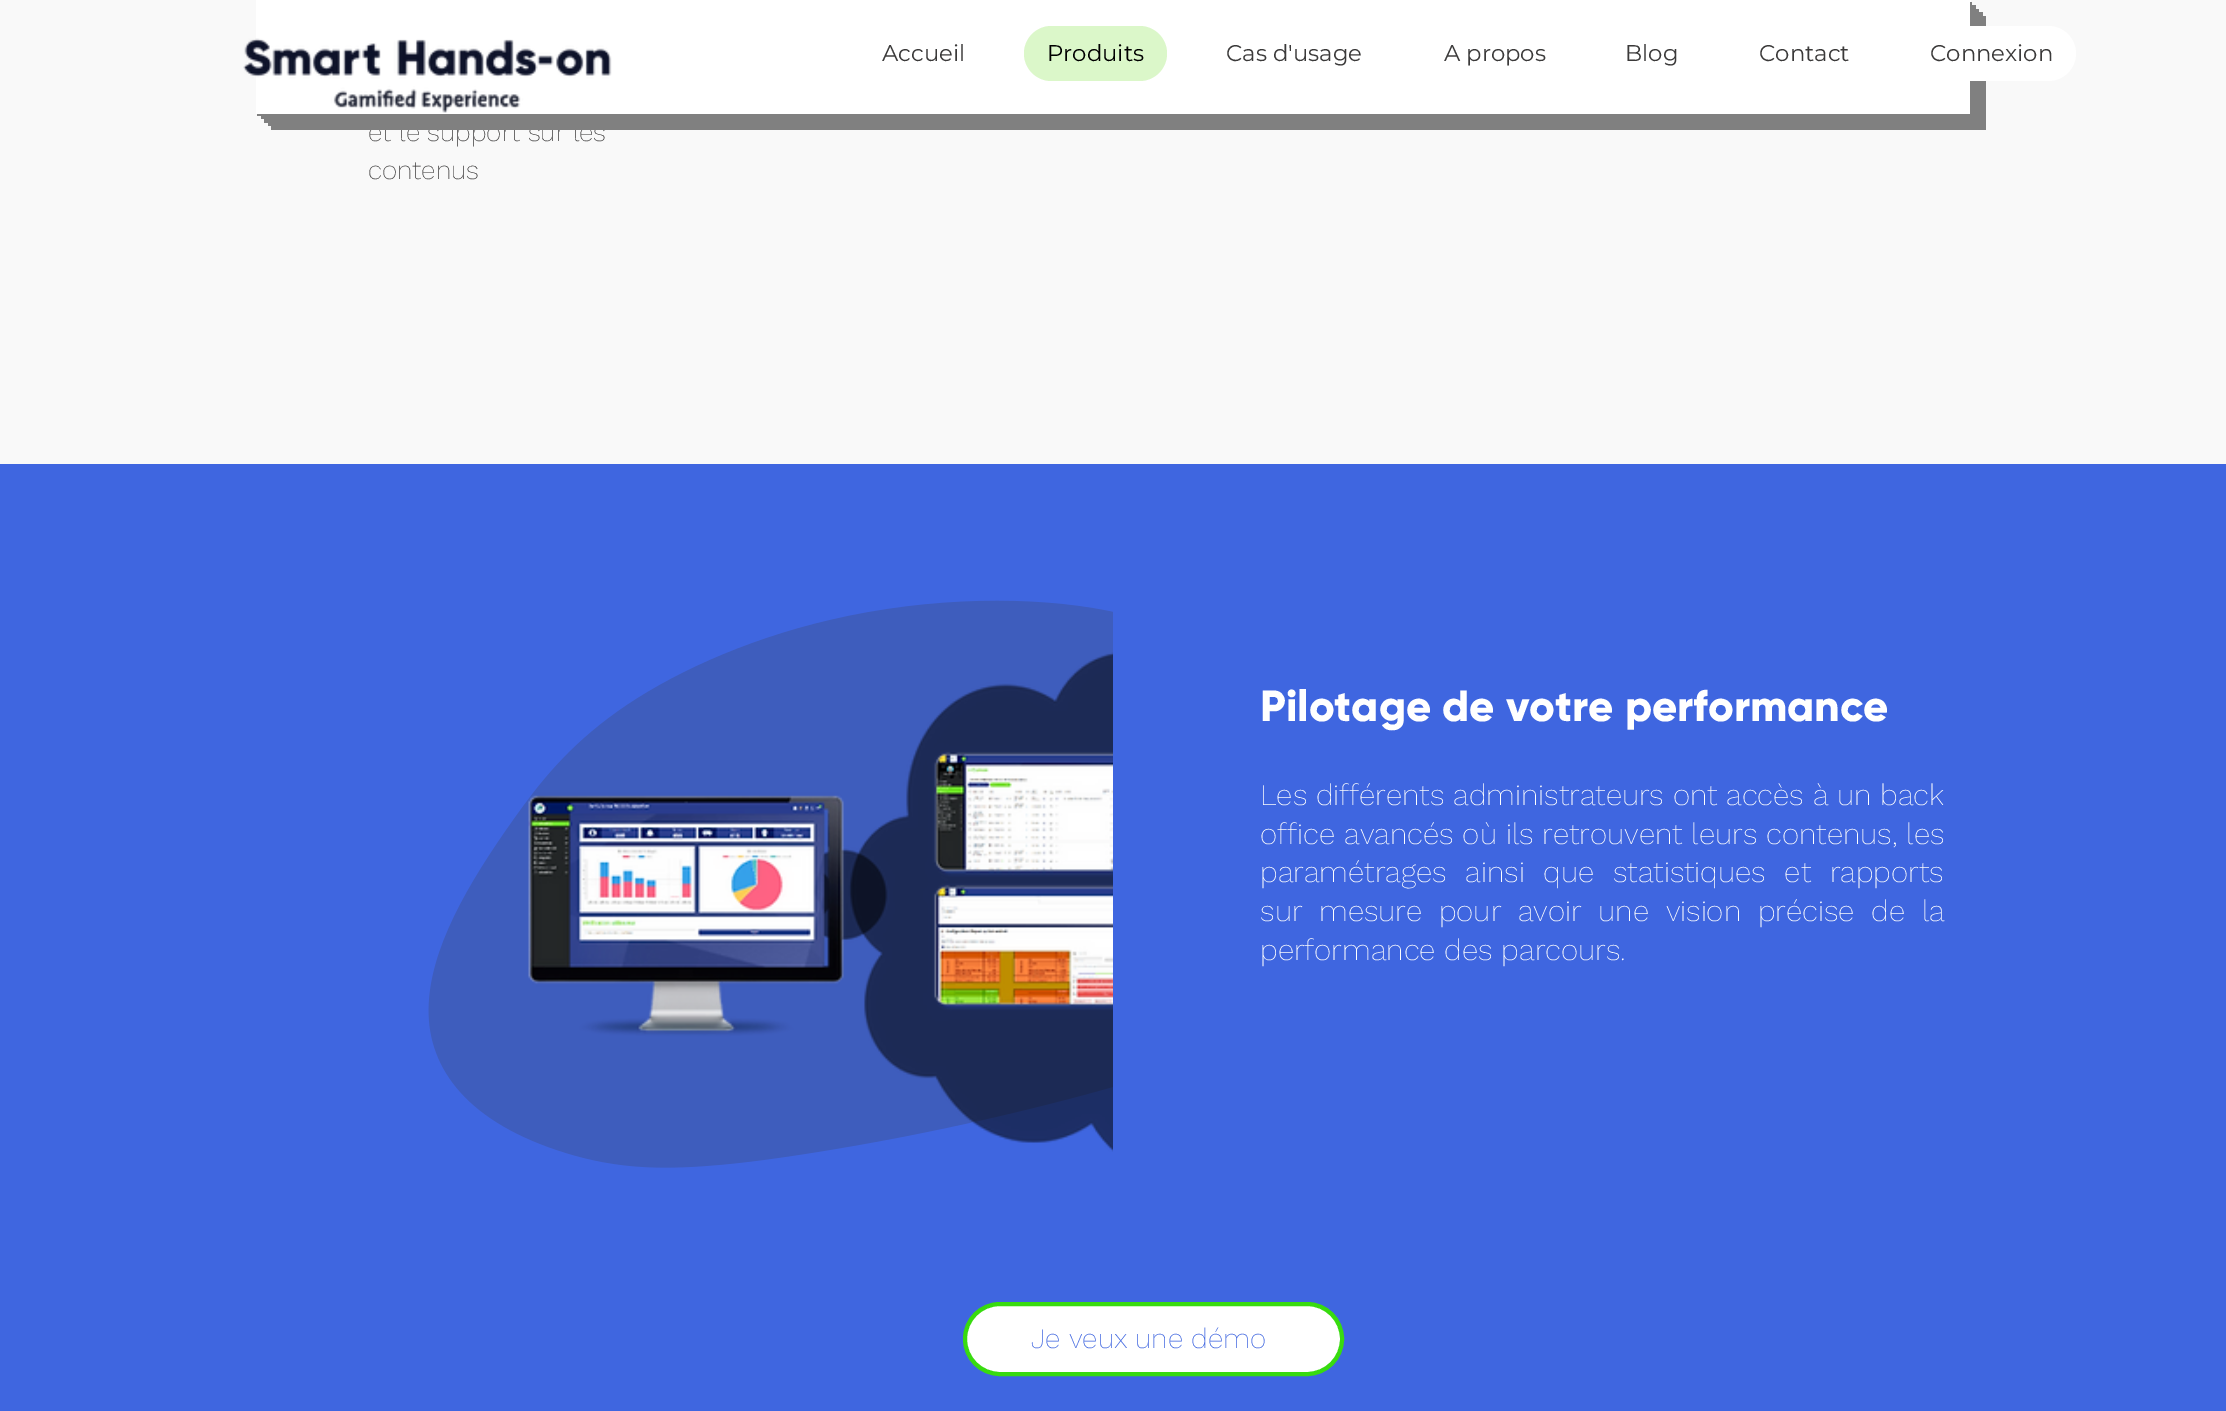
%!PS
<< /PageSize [2226 1411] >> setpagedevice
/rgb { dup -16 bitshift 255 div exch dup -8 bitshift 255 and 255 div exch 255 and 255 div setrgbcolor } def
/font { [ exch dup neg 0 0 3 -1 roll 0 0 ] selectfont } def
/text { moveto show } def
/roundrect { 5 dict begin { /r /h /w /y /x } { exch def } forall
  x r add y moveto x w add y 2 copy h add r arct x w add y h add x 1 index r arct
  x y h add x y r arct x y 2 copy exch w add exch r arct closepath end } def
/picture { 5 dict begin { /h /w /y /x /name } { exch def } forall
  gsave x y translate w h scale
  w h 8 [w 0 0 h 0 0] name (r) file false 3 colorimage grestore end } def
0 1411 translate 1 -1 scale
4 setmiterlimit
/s1 { /WorkSans-ExtraLight 26.25 font 16#3B3A3A rgb } def
/s2 { /Montserrat-Regular 22.75 font 16#3B3A3A rgb } def
/s3 { /Montserrat-Regular 22.75 font 16#000000 rgb } def
/s4 { /Gilroy-ExtraBold 43.75 font 16#FFFFFF rgb } def
/s5 { /WorkSans-ExtraLight 29.75 font 16#FFFFFF rgb } def
/s6 { /WorkSans-ExtraLight 28 font 16#3F66E0 rgb } def
16#F9F9F9 rgb
0 0 2226 1411 rectfill
16#FFFFFF rgb
256 0 1715 114 rectfill
s1
(et le support sur les) 368 141 text
16#808080 rgb
271 114 moveto 271 130 lineto 1986 130 lineto 1986 16 lineto 1970 16 lineto 1970 114 lineto closepath fill
268 114 moveto 268 126 lineto 1983 126 lineto 1983 12 lineto 1970 12 lineto 1970 114 lineto closepath fill
264 114 moveto 264 123 lineto 1979 123 lineto 1979 9 lineto 1970 9 lineto 1970 114 lineto closepath fill
261 114 moveto 261 119 lineto 1976 119 lineto 1976 5 lineto 1970 5 lineto 1970 114 lineto closepath fill
257 114 moveto 257 116 lineto 1972 116 lineto 1972 2 lineto 1970 2 lineto 1970 114 lineto closepath fill
(pic1.raw) 243 38 369 75 picture
s2
(Accueil) 882 61 text
16#DBF7C9 rgb
1024 26 143 55 27.5 roundrect fill
s3
(Produits) 1047 61 text
s2
(Cas d'usage) 1226 61 text
(A propos) 1444 61 text
(Blog) 1625 61 text
(Contact) 1759 61 text
16#FFFFFF rgb
1908 26 168 55 27.5 roundrect fill
s2
(Connexion) 1930 61 text
s1
(contenus) 368 179 text
16#3F66E0 rgb
0 464 2226 947 rectfill
(pic2.raw) 428 600 685 568 picture
(pic3.raw) 528 652 585 500 picture
s4
(Pilotage de votre performance) 1260 721 text
s5
(Les différents administrateurs ont accès à un back) 1260 805 text
1260 844 moveto 0.25 0 32 (office avancés où ils retrouvent leurs contenus, les) widthshow
1260 882 moveto 10 0 32 (paramétrages ainsi que statistiques et rapports) widthshow
1260 921 moveto 8 0 32 (sur mesure pour avoir une vision précise de la) widthshow
(performance des parcours.) 1260 960 text
965 1304 377 70 35 roundrect gsave fill grestore
16#38DB0F rgb
4 setlinewidth
stroke
s6
(Je veux une démo) 1031 1348 text
showpage
